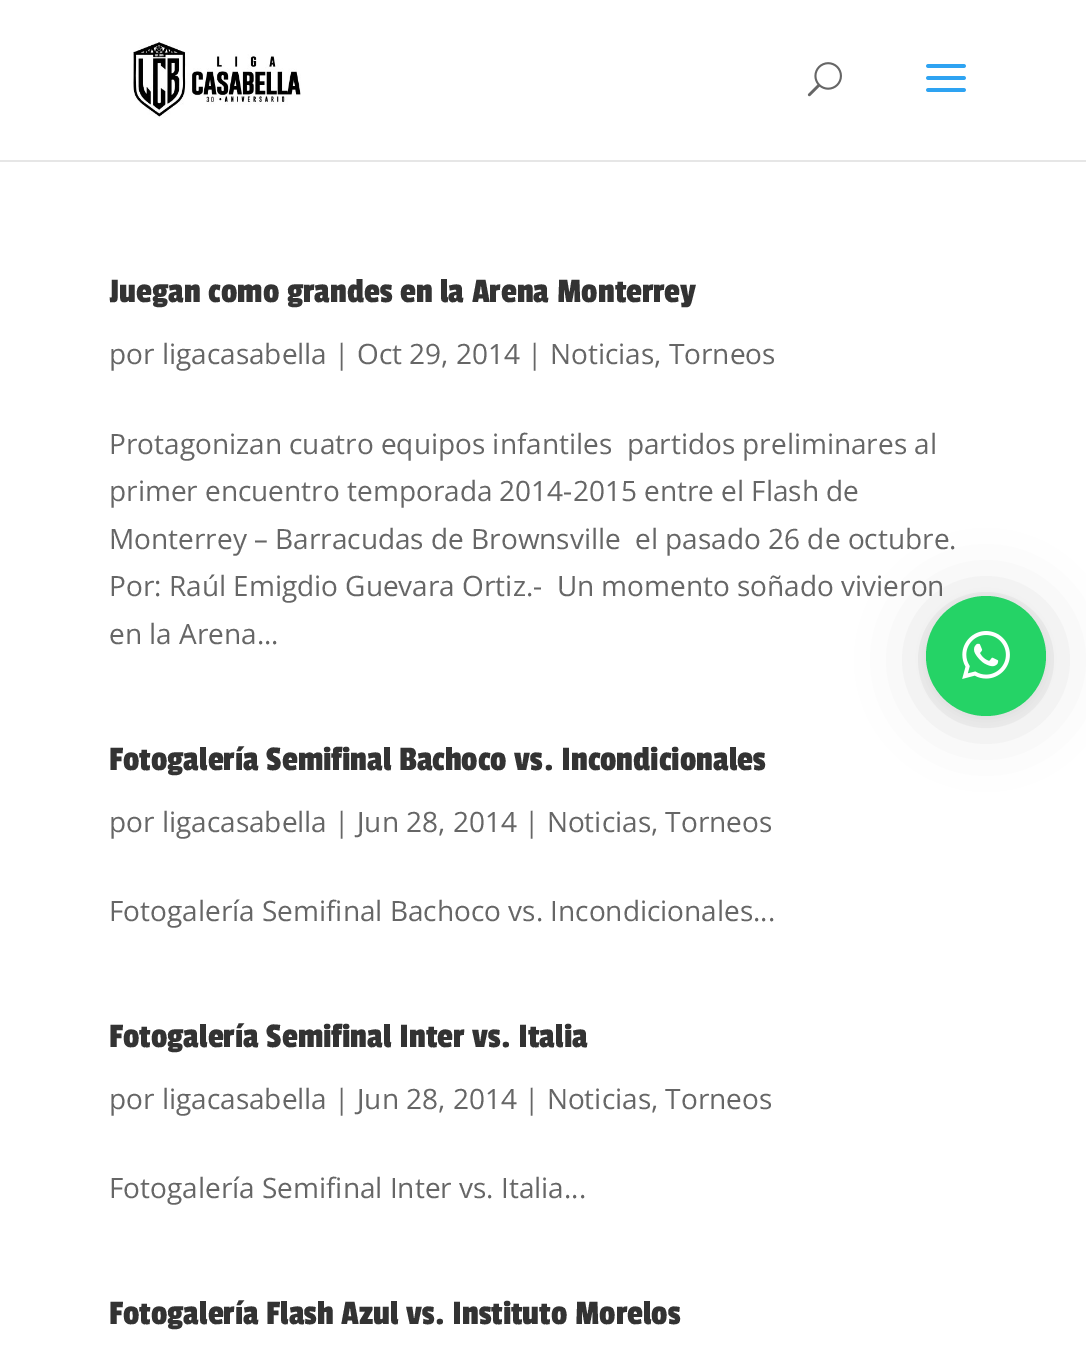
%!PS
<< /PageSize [1086 1368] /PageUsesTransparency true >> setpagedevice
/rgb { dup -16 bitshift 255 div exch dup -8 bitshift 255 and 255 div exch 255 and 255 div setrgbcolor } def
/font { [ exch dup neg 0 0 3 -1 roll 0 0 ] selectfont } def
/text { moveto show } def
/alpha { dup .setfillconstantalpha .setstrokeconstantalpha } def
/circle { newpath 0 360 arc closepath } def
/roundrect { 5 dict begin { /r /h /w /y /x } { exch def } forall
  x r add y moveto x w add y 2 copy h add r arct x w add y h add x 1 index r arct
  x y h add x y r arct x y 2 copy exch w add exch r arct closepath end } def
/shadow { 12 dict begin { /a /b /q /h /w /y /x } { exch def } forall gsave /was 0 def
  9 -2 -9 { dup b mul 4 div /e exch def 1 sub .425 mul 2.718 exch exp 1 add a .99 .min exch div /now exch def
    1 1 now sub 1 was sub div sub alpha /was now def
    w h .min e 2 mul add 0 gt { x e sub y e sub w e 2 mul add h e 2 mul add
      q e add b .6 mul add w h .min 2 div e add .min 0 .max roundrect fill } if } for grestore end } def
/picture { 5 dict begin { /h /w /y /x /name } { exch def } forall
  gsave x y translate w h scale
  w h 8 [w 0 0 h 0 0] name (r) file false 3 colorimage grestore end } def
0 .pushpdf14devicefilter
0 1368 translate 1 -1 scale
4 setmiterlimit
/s1 { /PassionOne-Regular 36 font 16#333333 rgb } def
/s2 { /OpenSans-Regular 28 font 16#666666 rgb } def
16#FFFFFF rgb
0 0 1086 1368 rectfill
16#E6E6E6 rgb
0 160 1086 2 rectfill
(pic1.raw) 133 41 168 77 picture
(pic2.raw) 807 62 35 35 picture
(pic3.raw) 926 64 40 28 picture
s1
(Juegan como grandes en la Arena Monterrey) 109 302 text
s2
(por ligacasabella | Oct 29, 2014 | Noticias, Torneos) 109 364 text
(Protagonizan cuatro equipos infantiles  partidos preliminares al) 109 454 text
(primer encuentro temporada 2014-2015 entre el Flash de) 109 501 text
(Monterrey – Barracudas de Brownsville  el pasado 26 de octubre.) 109 549 text
(Por: Raúl Emigdio Guevara Ortiz.-  Un momento soñado vivieron) 109 596 text
(en la Arena...) 109 644 text
s1
(Fotogalería Semifinal Bachoco vs. Incondicionales) 109 770 text
s2
(por ligacasabella | Jun 28, 2014 | Noticias, Torneos) 109 832 text
(Fotogalería Semifinal Bachoco vs. Incondicionales...) 109 921 text
s1
(Fotogalería Semifinal Inter vs. Italia) 109 1047 text
s2
(por ligacasabella | Jun 28, 2014 | Noticias, Torneos) 109 1109 text
(Fotogalería Semifinal Inter vs. Italia...) 109 1198 text
s1
(Fotogalería Flash Azul vs. Instituto Morelos) 109 1324 text
16#000000 rgb
926 600 120 120 60 32 0.16 shadow
926 598 120 120 60 6 0.06 shadow
16#25D366 rgb
986 656 60 circle fill
(pic4.raw) 962 631 48 48 picture
.poppdf14devicefilter showpage
